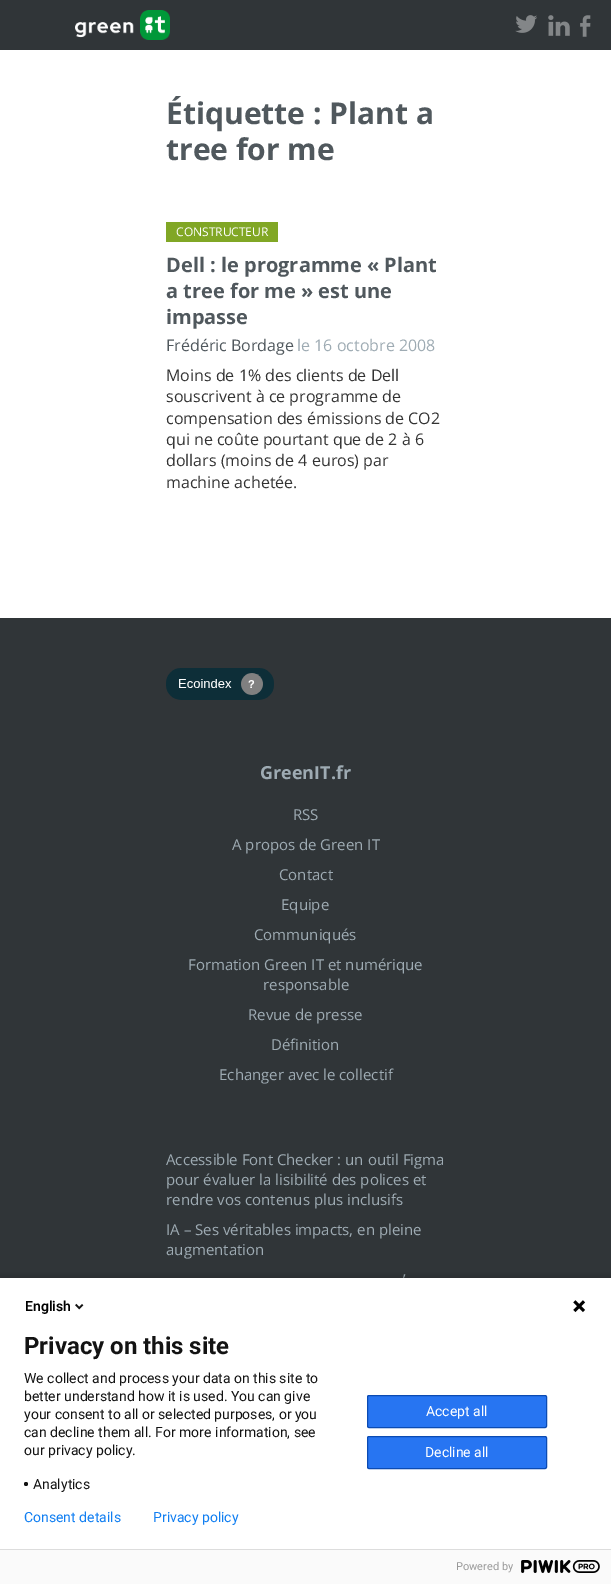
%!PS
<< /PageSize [611 1584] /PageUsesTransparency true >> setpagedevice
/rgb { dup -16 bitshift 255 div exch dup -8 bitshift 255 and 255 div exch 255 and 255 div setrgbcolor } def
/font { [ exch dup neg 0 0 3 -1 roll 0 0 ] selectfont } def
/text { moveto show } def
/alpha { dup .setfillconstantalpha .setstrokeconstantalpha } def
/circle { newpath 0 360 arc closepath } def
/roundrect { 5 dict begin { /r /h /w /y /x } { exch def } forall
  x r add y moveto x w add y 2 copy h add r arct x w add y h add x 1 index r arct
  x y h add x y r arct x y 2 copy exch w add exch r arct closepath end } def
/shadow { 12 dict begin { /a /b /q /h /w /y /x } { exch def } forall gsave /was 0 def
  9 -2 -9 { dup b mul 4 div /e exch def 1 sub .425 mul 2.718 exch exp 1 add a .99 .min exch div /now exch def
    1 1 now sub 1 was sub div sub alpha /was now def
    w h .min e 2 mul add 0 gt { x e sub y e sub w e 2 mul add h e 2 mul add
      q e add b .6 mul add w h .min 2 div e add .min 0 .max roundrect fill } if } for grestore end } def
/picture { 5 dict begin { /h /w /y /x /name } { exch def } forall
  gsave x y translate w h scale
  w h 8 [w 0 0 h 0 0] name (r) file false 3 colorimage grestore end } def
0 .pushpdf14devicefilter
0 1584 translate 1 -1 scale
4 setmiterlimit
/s1 { /OpenSans-Bold 30 font 16#50585D rgb } def
/s2 { /OpenSans-Regular 12 font 16#FFFFFF rgb } def
/s3 { /OpenSans-Bold 20 font 16#50585D rgb } def
/s4 { /OpenSans-Regular 16 font 16#50585D rgb } def
/s5 { /OpenSans-Regular 16 font 16#9EABB3 rgb } def
/s6 { /OpenSans-Regular 16 font 16#333333 rgb } def
/s7 { /OpenSans-Bold 18 font 16#9EABB3 rgb } def
/s8 { /OpenSans-Regular 15 font 16#9EABB3 rgb } def
/s9 { /Roboto-SemiBold 14 font 16#000000 rgb } def
/s10 { /Roboto-Bold 24 font 16#131313 rgb } def
/s11 { /Roboto-Regular 14 font 16#131313 rgb } def
/s12 { /Roboto-Regular 14 font 16#FFFFFF rgb } def
/s13 { /Roboto-Regular 14 font 16#107EF1 rgb } def
/s14 { /Roboto-Regular 11 font 16#999999 rgb } def
16#303538 rgb
0 0 611 1584 rectfill
(pic1.raw) 75 10 95 30 picture
(pic2.raw) 515 15 22 18 picture
(pic3.raw) 548 15 22 21 picture
(pic4.raw) 580 15 11 22 picture
16#FFFFFF rgb
0 50 611 568 rectfill
s1
(Étiquette : Plant a) 166 124 text
(tree for me) 166 160 text
16#81A725 rgb
166 222 112 20 rectfill
s2
(CONSTRUCTEUR) 176 236 text
s3
(Dell : le programme « Plant) 166 272 text
(a tree for me » est une) 166 298 text
(impasse) 166 324 text
s4
(Frédéric Bordage) 166 351 text
s5
(le 16 octobre 2008) 297 351 text
s6
(Moins de 1% des clients de Dell) 166 381 text
(souscrivent à ce programme de) 166 402 text
(compensation des émissions de CO2) 166 424 text
(qui ne coûte pourtant que de 2 à 6) 166 445 text
(dollars \(moins de 4 euros\) par) 166 466 text
(machine achetée.) 166 488 text
(pic5.raw) 166 668 108 32 picture
s7
(GreenIT.fr) 260 779 text
s8
(RSS) 293 820 text
(A propos de Green IT) 232 850 text
(Contact) 279 880 text
(Equipe) 281 910 text
(Communiqués) 254 940 text
(Formation Green IT et numérique) 188 970 text
(responsable) 263 990 text
(Revue de presse) 248 1020 text
(Définition) 271 1050 text
(Echanger avec le collectif) 219 1080 text
(Accessible Font Checker : un outil Figma) 166 1165 text
(pour évaluer la lisibilité des polices et) 166 1185 text
(rendre vos contenus plus inclusifs) 166 1205 text
(IA – Ses véritables impacts, en pleine) 166 1235 text
(augmentation) 166 1255 text
(’) 403 1285 text
16#000000 rgb
-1 1275 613 308 0 2.5 0.14 shadow
16#FFFFFF rgb
0 1278 611 271 rectfill
s9
(English) 25 1311 text
(pic6.raw) 75 1303 9 7 picture
(pic7.raw) 573 1300 13 13 picture
s10
(Privacy on this site) 24 1354 text
s11
(We collect and process your data on this site to) 24 1383 text
(better understand how it is used. You can give) 24 1401 text
(your consent to all or selected purposes, or you) 24 1419 text
(can decline them all. For more information, see) 24 1437 text
(our privacy policy.) 24 1455 text
26 1484 2 circle fill
(Analytics) 33 1489 text
16#2775F2 rgb
367.5 1395.5 179 32 1.5 roundrect gsave fill grestore
16#0B4BB3 rgb
stroke
s12
(Accept all) 426 1416 text
16#2775F2 rgb
367.5 1436.5 179 32 1.5 roundrect gsave fill grestore
16#0B4BB3 rgb
stroke
s12
(Decline all) 425 1457 text
s13
(Consent details) 24 1522 text
(Privacy policy) 153 1522 text
16#FAFAFA rgb
0 1550 611 34 rectfill
16#DDDDDD rgb
0 1549 611 1 rectfill
s14
(Powered by) 456 1570 text
(pic8.raw) 521 1560 79 13 picture
.poppdf14devicefilter showpage
